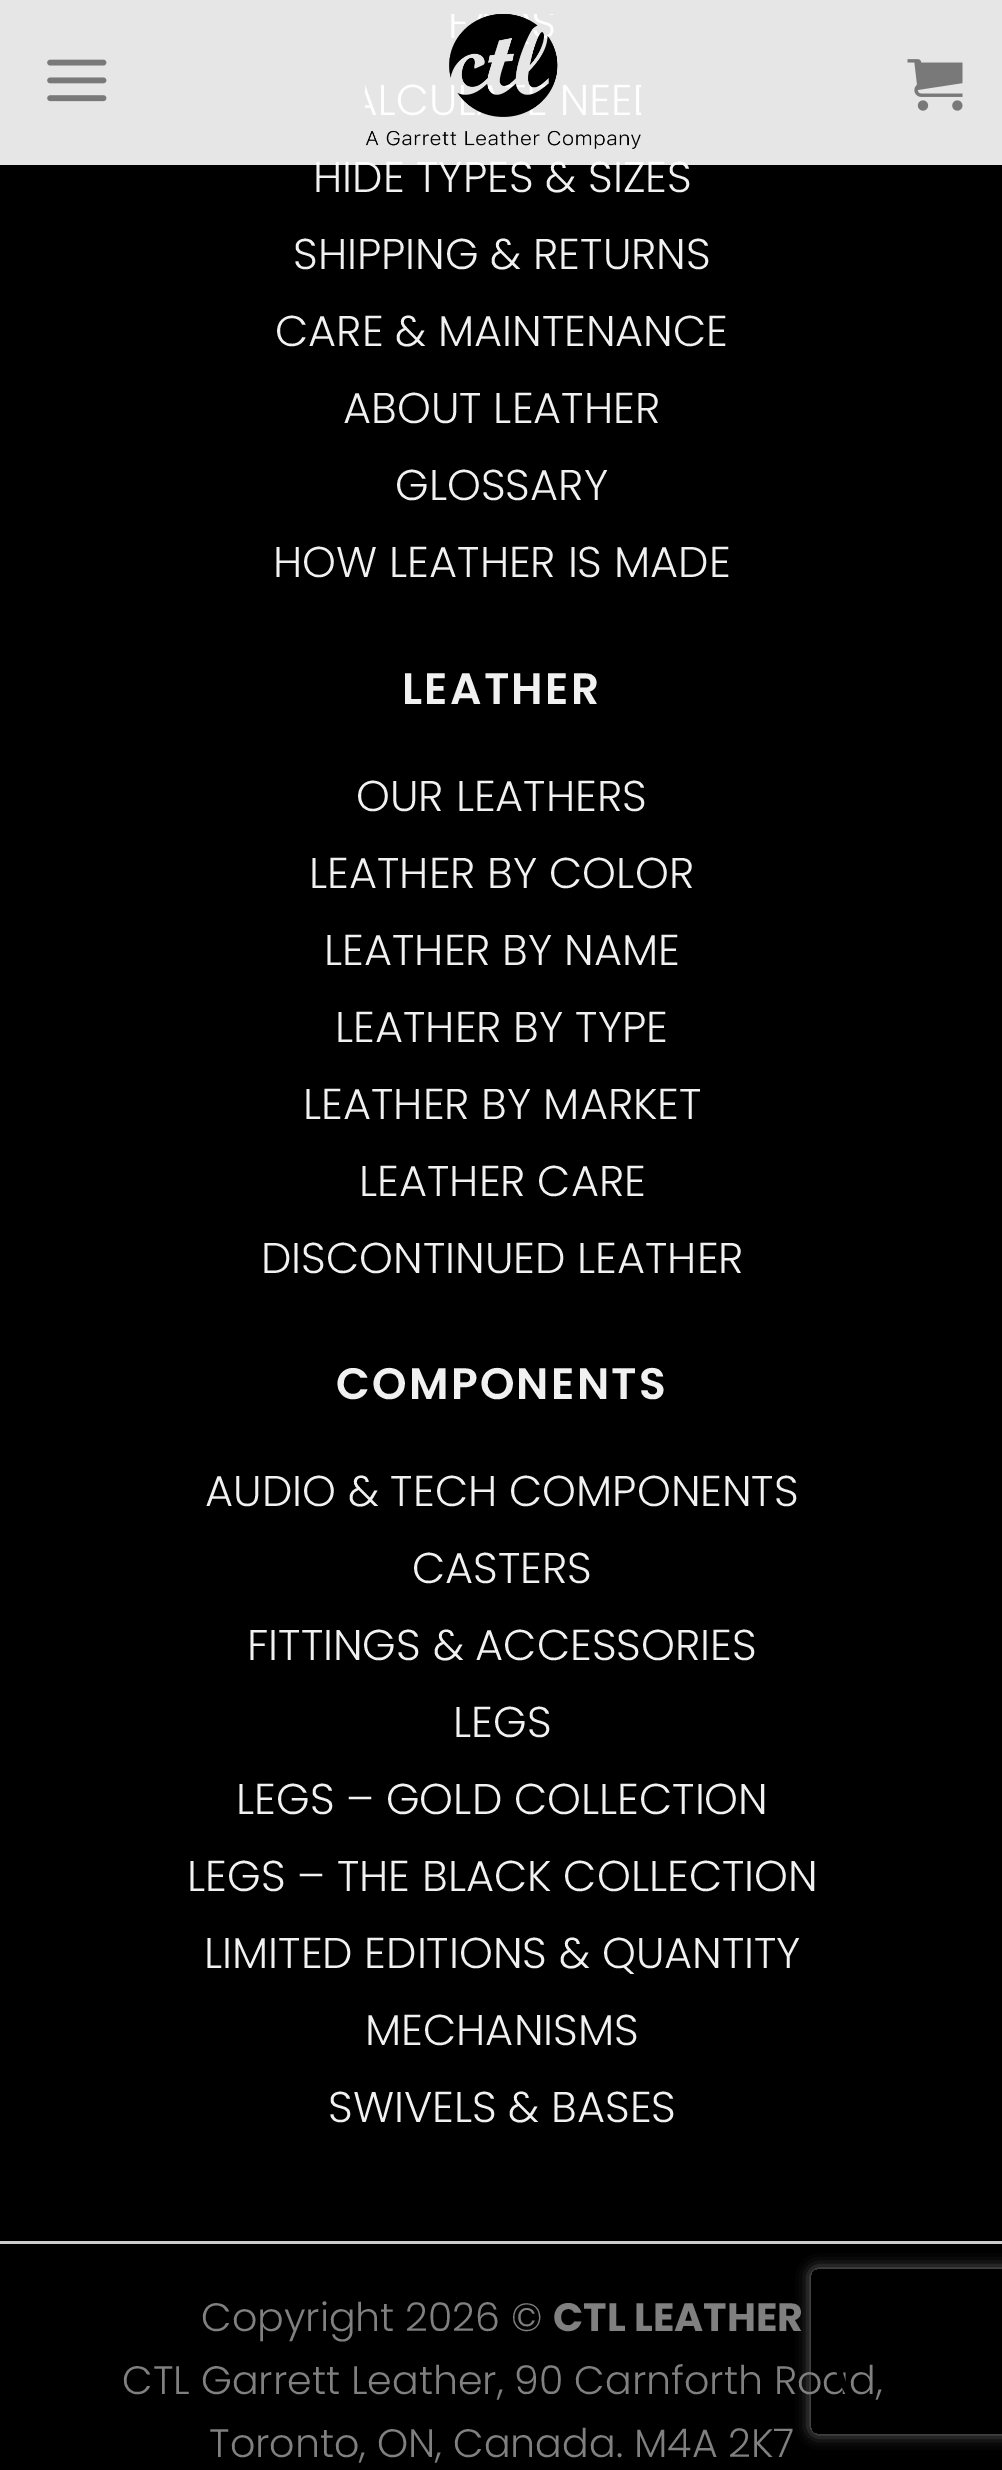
%!PS
<< /PageSize [1002 2470] /PageUsesTransparency true >> setpagedevice
/rgb { dup -16 bitshift 255 div exch dup -8 bitshift 255 and 255 div exch 255 and 255 div setrgbcolor } def
/font { [ exch dup neg 0 0 3 -1 roll 0 0 ] selectfont } def
/text { moveto show } def
/alpha { dup .setfillconstantalpha .setstrokeconstantalpha } def
/circle { newpath 0 360 arc closepath } def
/roundrect { 5 dict begin { /r /h /w /y /x } { exch def } forall
  x r add y moveto x w add y 2 copy h add r arct x w add y h add x 1 index r arct
  x y h add x y r arct x y 2 copy exch w add exch r arct closepath end } def
/shadow { 12 dict begin { /a /b /q /h /w /y /x } { exch def } forall gsave /was 0 def
  9 -2 -9 { dup b mul 4 div /e exch def 1 sub .425 mul 2.718 exch exp 1 add a .99 .min exch div /now exch def
    1 1 now sub 1 was sub div sub alpha /was now def
    w h .min e 2 mul add 0 gt { x e sub y e sub w e 2 mul add h e 2 mul add
      q e add b .6 mul add w h .min 2 div e add .min 0 .max roundrect fill } if } for grestore end } def
/picture { 5 dict begin { /h /w /y /x /name } { exch def } forall
  gsave x y translate w h scale
  w h 8 [w 0 0 h 0 0] name (r) file false 3 colorimage grestore end } def
0 .pushpdf14devicefilter
0 2470 translate 1 -1 scale
4 setmiterlimit
/s1 { /Poppins-Light 43.1 font 16#F1F1F1 rgb } def
/s2 { /Poppins-Light 39.6 font 16#808080 rgb } def
/s3 { /Poppins-Bold 39.6 font 16#808080 rgb } def
16#000000 rgb
0 0 1002 2470 rectfill
gsave
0 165 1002 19 rectclip
3 3 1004 165 0 14 0.15 shadow
grestore
s1
(HIDE TYPES & SIZES) 313 192 text
0.9 alpha
16#FFFFFF rgb
0 0 1002 165 rectfill
1 alpha
(pic1.raw) 47 59 60 43 picture
(pic2.raw) 365 14 276 135 picture
(pic3.raw) 907 59 56 52 picture
s1
(SHIPPING & RETURNS) 293 269 text
(CARE & MAINTENANCE) 275 346 text
(ABOUT LEATHER) 343 423 text
(GLOSSARY) 395 500 text
(HOW LEATHER IS MADE) 273 577 text
/Poppins-SemiBold 44 font
402 704 moveto 2.25 0 (LEATHER) ashow
s1
(OUR LEATHERS) 356 811 text
(LEATHER BY COLOR) 309 888 text
(LEATHER BY NAME) 324 965 text
(LEATHER BY TYPE) 335 1042 text
(LEATHER BY MARKET) 303 1119 text
(LEATHER CARE) 359 1196 text
(DISCONTINUED LEATHER) 261 1273 text
/Poppins-SemiBold 44 font
336 1399 moveto 2.25 0 (COMPONENTS) ashow
s1
(AUDIO & TECH COMPONENTS) 205 1506 text
(CASTERS) 412 1583 text
(FITTINGS & ACCESSORIES) 247 1660 text
(LEGS) 453 1737 text
(LEGS – GOLD COLLECTION) 236 1814 text
(LEGS – THE BLACK COLLECTION) 187 1891 text
(LIMITED EDITIONS & QUANTITY) 204 1968 text
(MECHANISMS) 365 2045 text
(SWIVELS & BASES) 328 2122 text
16#CCCCCC rgb
0 2241 1002 3 rectfill
s2
(Copyright 2026 ©) 201 2331 text
s3
(CTL LEATHER) 553 2331 text
s2
(CTL Garrett Leather, 90 Carnforth Road,) 122 2394 text
(Toronto, ON, Canada.) 209 2457 text
(M4A 2K7) 634 2457 text
gsave
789 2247 moveto 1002 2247 lineto 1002 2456 lineto 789 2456 lineto closepath 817 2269 moveto 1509 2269 lineto 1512.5 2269 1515 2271.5 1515 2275 curveto 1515 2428 lineto 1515 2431.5 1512.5 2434 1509 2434 curveto 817 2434 lineto 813.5 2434 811 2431.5 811 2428 curveto 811 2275 lineto 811 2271.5 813.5 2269 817 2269 curveto closepath eoclip newpath
811 2269 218 165 6 7 1 shadow
grestore
16#000000 rgb
6 setlinewidth
889.5 2363.5 50.5 circle stroke
.poppdf14devicefilter showpage
